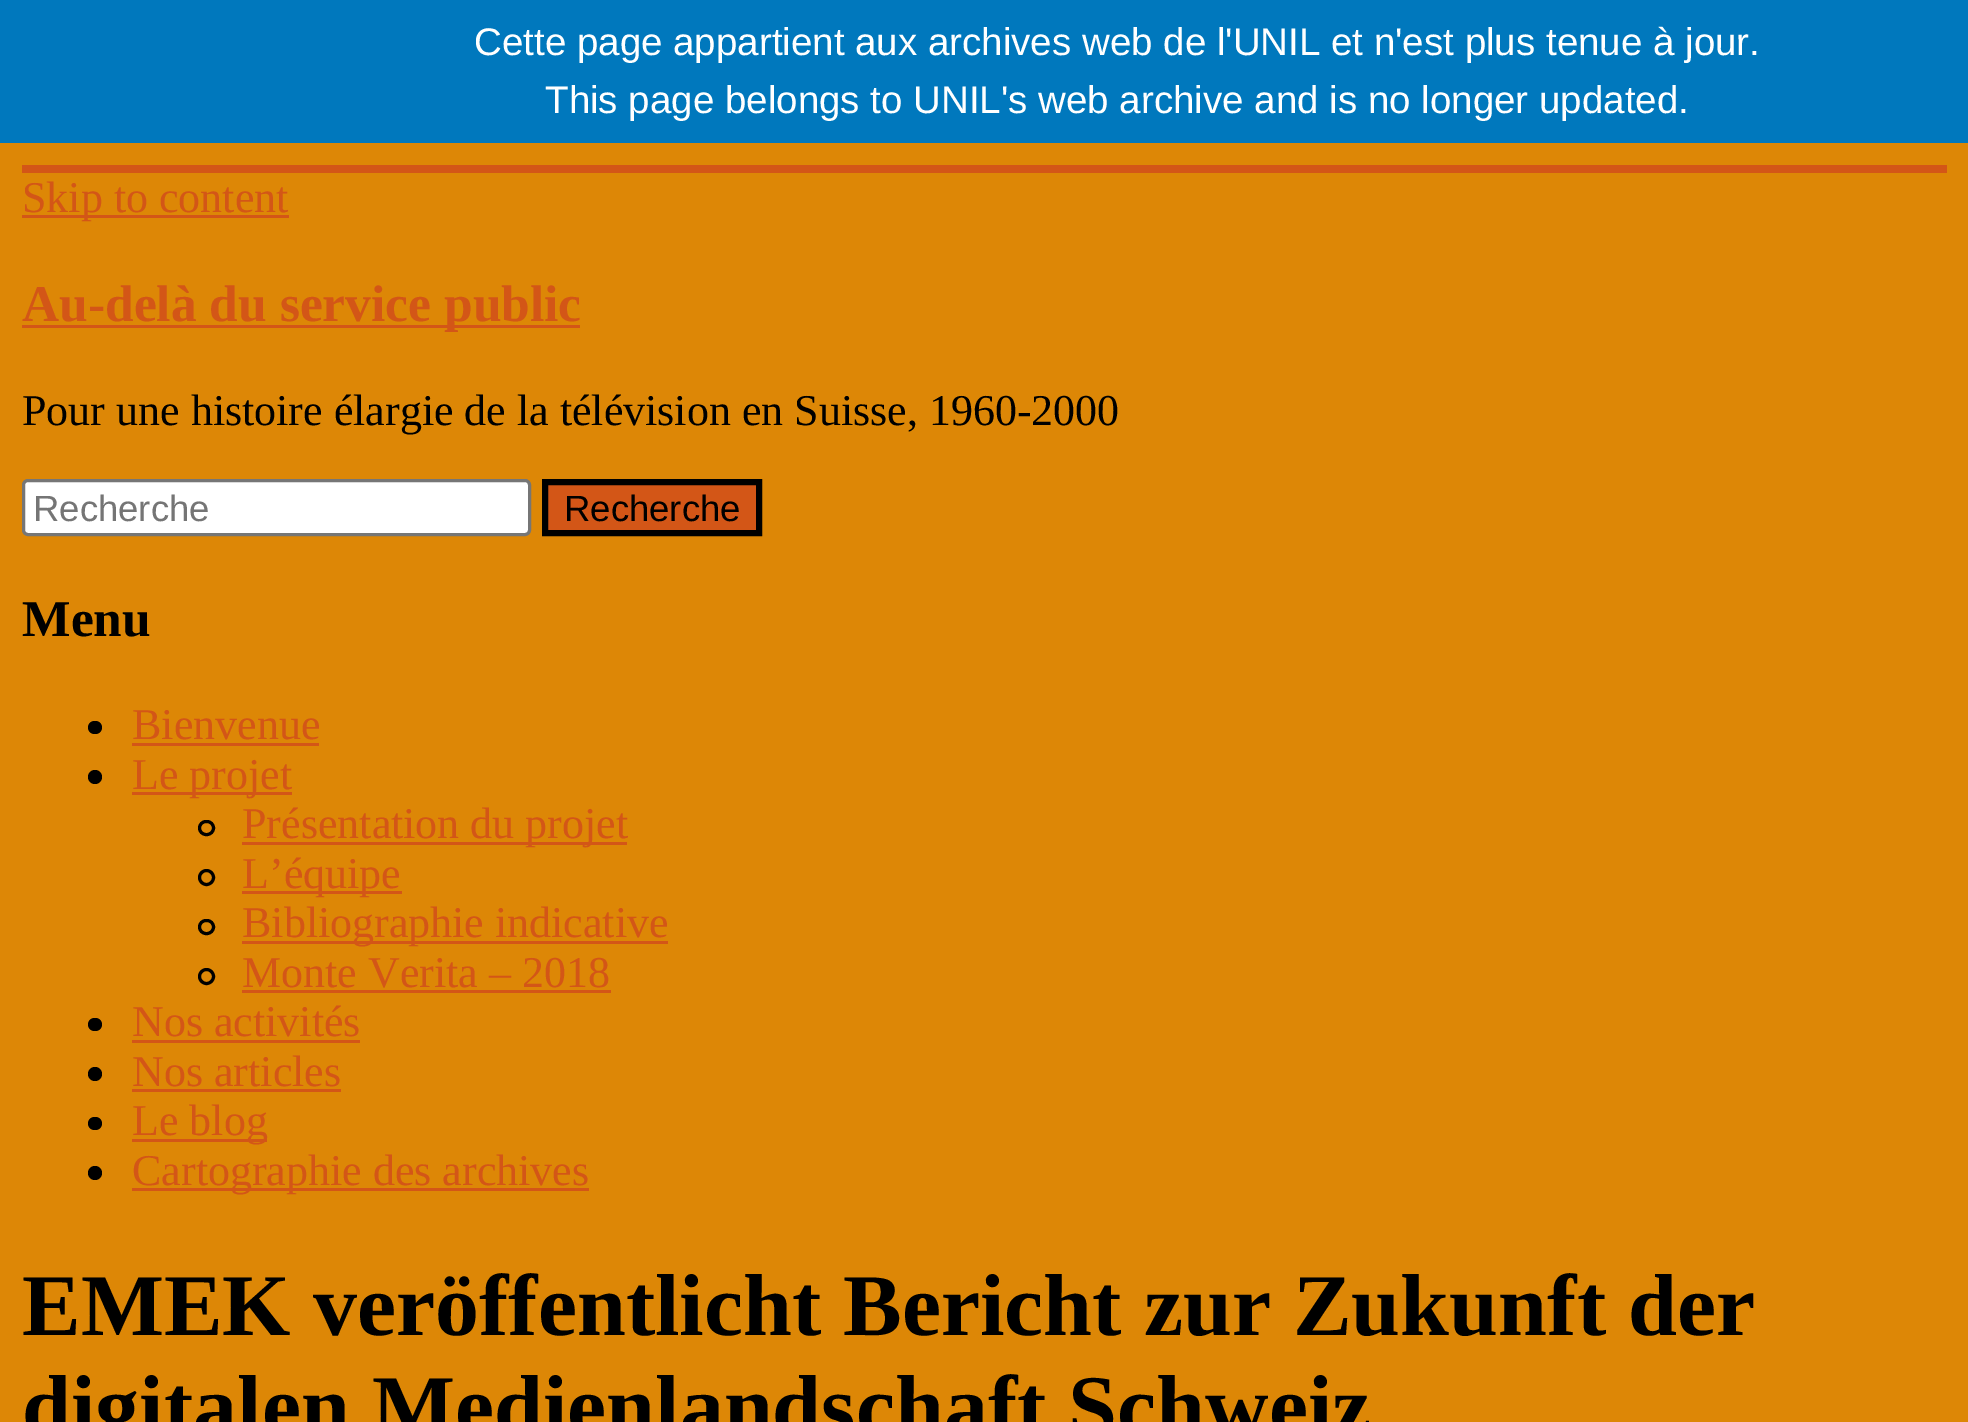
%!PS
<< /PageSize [1968 1422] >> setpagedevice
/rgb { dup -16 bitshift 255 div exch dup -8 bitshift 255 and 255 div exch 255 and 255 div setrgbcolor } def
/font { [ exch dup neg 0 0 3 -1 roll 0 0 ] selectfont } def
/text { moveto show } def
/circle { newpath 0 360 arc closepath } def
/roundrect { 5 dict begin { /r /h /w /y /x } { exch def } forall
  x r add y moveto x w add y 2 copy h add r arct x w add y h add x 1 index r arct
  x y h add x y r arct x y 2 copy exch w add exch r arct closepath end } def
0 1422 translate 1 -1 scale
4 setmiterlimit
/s1 { /LiberationSans-Regular 38.5 font 16#FFFFFF rgb } def
/s2 { /LiberationSerif-Regular 44 font 16#D35617 rgb } def
/s3 { /LiberationSerif-Bold 51.5 font 16#D35617 rgb } def
/s4 { /LiberationSerif-Regular 44 font 16#000000 rgb } def
/s5 { /LiberationSans-Regular 36.5 font 16#757575 rgb } def
/s6 { /LiberationSans-Regular 36.5 font 16#000000 rgb } def
/s7 { /LiberationSerif-Bold 51.5 font 16#000000 rgb } def
/s8 { /LiberationSerif-Bold 88 font 16#000000 rgb } def
16#DD8706 rgb
0 0 1968 1422 rectfill
16#0078BD rgb
0 0 1968 143 rectfill
s1
(Cette page appartient aux archives web de l'UNIL et n'est plus tenue à jour.) 474 55 text
(This page belongs to UNIL's web archive and is no longer updated.) 545 113 text
16#D35617 rgb
22 165 1925 8 rectfill
22 215 267 3 rectfill
s2
(Skip to content) 22 212 text
22 325 558 3 rectfill
s3
(Au-delà du service public) 22 321 text
s4
(Pour une histoire élargie de la télévision en Suisse, 1960-2000) 22 425 text
16#FFFFFF rgb
23.5 480.5 506 54 4.5 roundrect gsave fill grestore
16#767676 rgb
3 setlinewidth
stroke
s5
(Recherche) 33 521 text
16#D35617 rgb
545 482 moveto 759 482 lineto 759 533 lineto 545 533 lineto closepath gsave fill grestore
16#000000 rgb
6 setlinewidth
stroke
(Recherche) 564 521 text
s7
(Menu) 22 636 text
88 721 14 13 6.5 roundrect fill
s2
(Bienvenue) 132 739 text
132 743 187 3 rectfill
16#000000 rgb
95 777 7 circle fill
16#D35617 rgb
132 792 160 3 rectfill
(Le projet) 132 789 text
16#000000 rgb
3 setlinewidth
199.5 821.5 14 13 6.5 roundrect stroke
16#D35617 rgb
242 842 385 3 rectfill
(Présentation du projet) 242 838 text
16#000000 rgb
206.5 877.5 7 circle stroke
16#D35617 rgb
242 891 160 3 rectfill
(L’équipe) 242 888 text
16#000000 rgb
199.5 920.5 14 13 6.5 roundrect stroke
16#D35617 rgb
242 941 426 3 rectfill
(Bibliographie indicative) 242 937 text
16#000000 rgb
206.5 976.5 7 circle stroke
s2
(Monte Verita – 2018) 242 987 text
242 990 369 3 rectfill
16#000000 rgb
88 1018 14 13 6.5 roundrect fill
s2
(Nos activités) 132 1036 text
132 1040 228 3 rectfill
16#000000 rgb
95 1074 7 circle fill
s2
(Nos articles) 132 1086 text
132 1089 209 3 rectfill
16#000000 rgb
88 1117 14 13 6.5 roundrect fill
16#D35617 rgb
132 1139 135 3 rectfill
(Le blog) 132 1135 text
16#000000 rgb
95 1173 7 circle fill
16#D35617 rgb
132 1188 457 3 rectfill
(Cartographie des archives) 132 1185 text
s8
(EMEK veröffentlicht Bericht zur Zukunft der) 22 1335 text
(digitalen Medienlandschaft Schweiz) 22 1436 text
showpage
